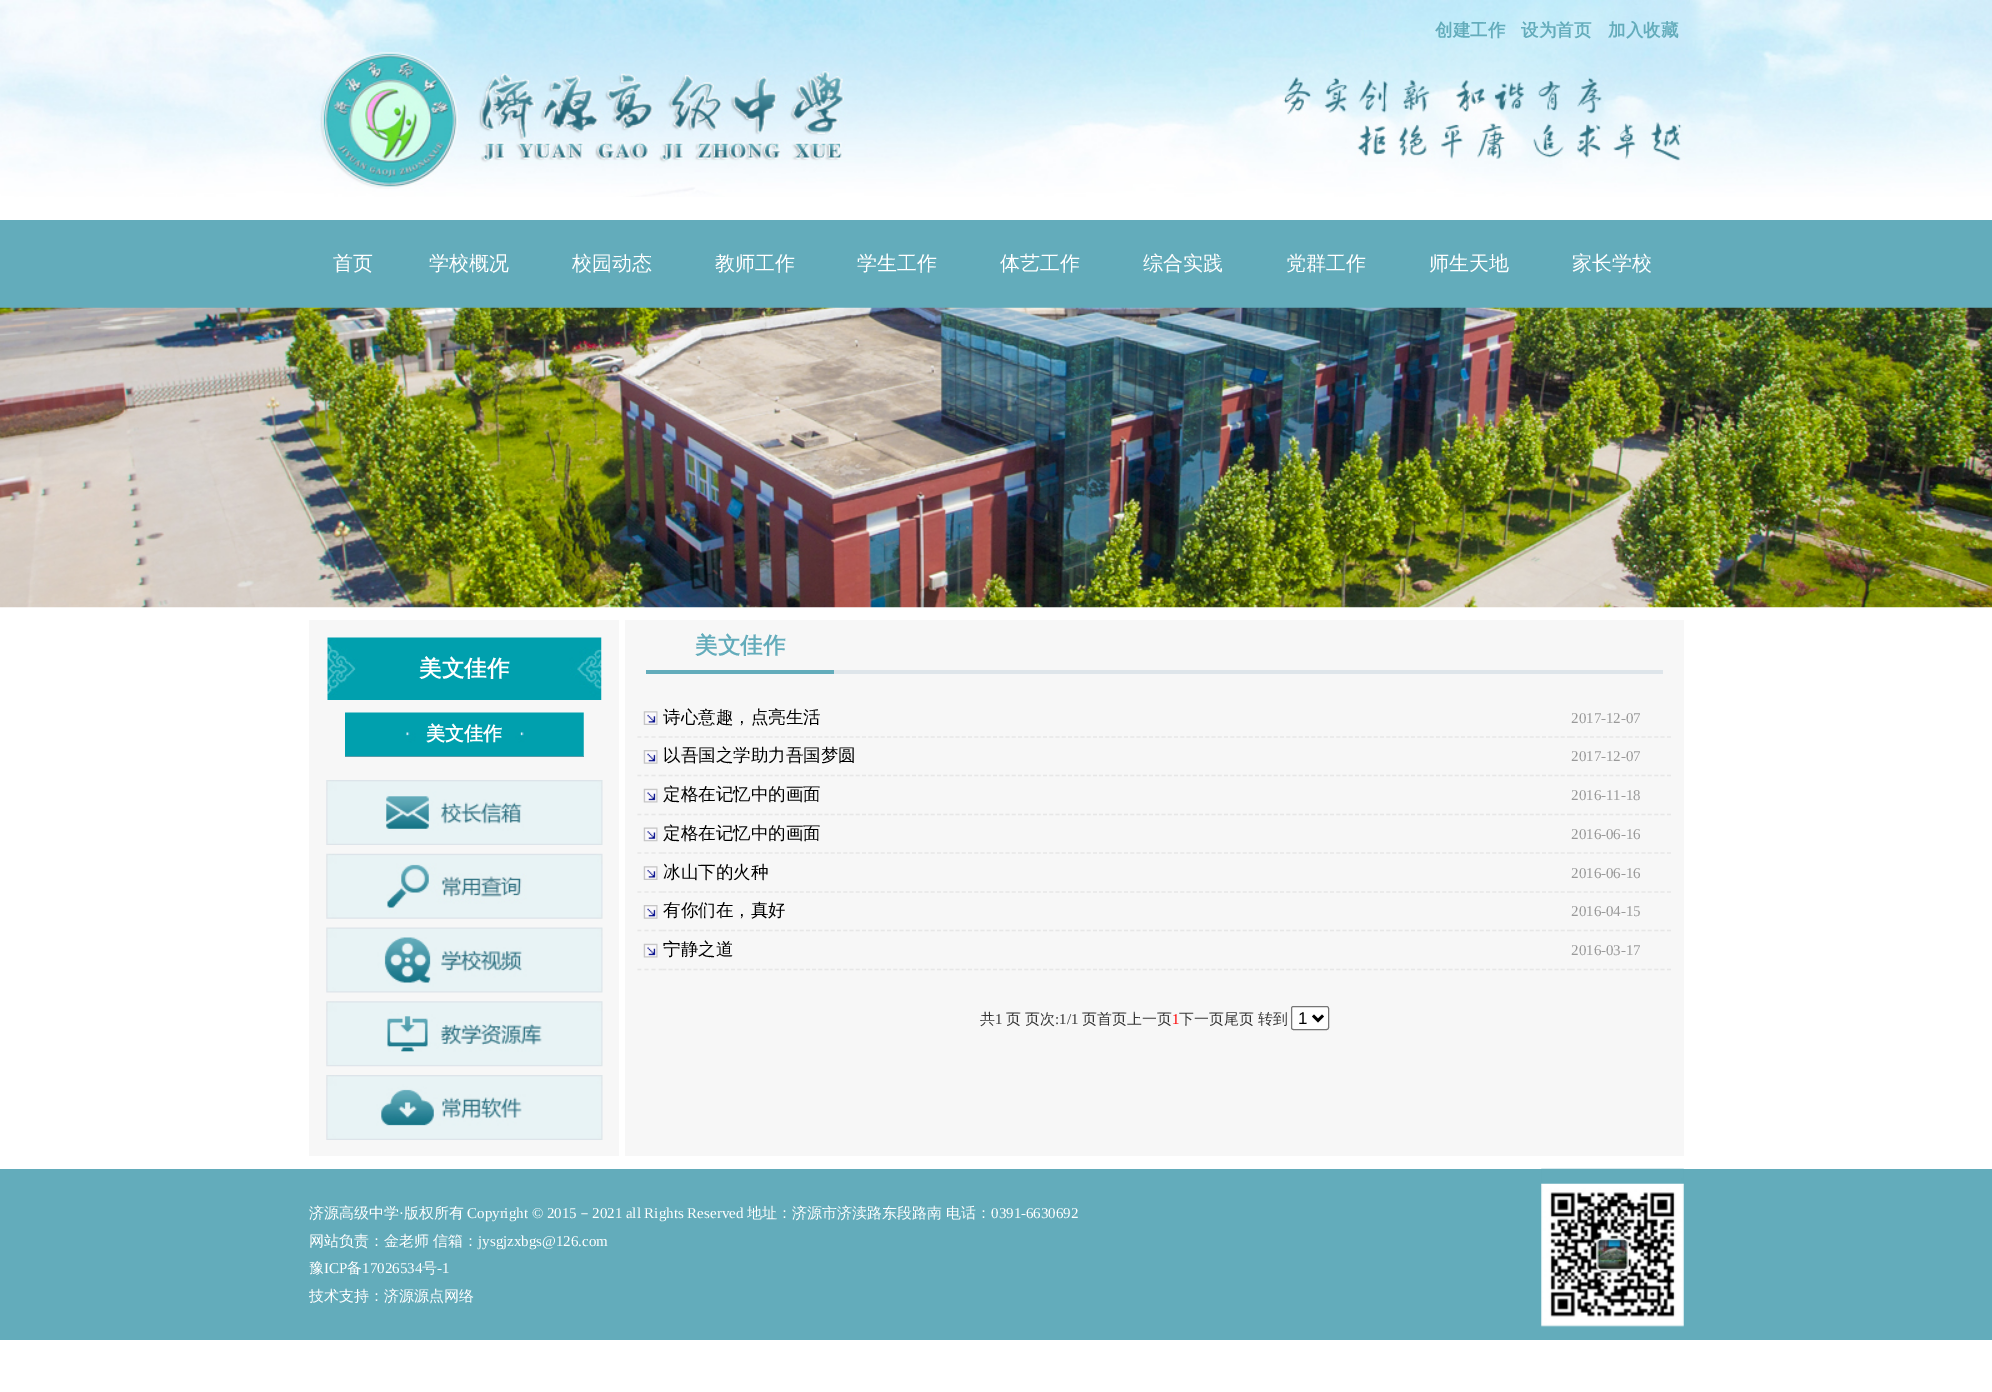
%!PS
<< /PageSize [1992 1392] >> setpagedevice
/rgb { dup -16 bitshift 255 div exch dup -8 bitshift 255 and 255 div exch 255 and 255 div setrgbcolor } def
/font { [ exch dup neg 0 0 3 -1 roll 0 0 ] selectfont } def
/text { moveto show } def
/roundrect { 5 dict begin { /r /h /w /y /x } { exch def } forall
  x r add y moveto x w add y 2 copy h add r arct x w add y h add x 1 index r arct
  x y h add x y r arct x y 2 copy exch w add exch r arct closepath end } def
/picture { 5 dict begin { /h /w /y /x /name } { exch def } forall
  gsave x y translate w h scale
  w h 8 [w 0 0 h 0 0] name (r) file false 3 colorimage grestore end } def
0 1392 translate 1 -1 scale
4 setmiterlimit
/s1 { /WenQuanYiZenHei-Bold 17.5 font 16#63ACBB rgb } def
/s2 { /WenQuanYiZenHei-Medium 20 font 16#FFFFFF rgb } def
/s3 { /WenQuanYiZenHei-Bold 22.5 font 16#FFFFFF rgb } def
/s4 { /WenQuanYiZenHei-Bold 19 font 16#FFFFFF rgb } def
/s5 { /WenQuanYiZenHei-Bold 22.5 font 16#63ACBB rgb } def
/s6 { /WenQuanYiZenHei-Medium 17.5 font 16#000000 rgb } def
/s7 { /LiberationSerif-Regular 15 font 16#999999 rgb } def
/s8 { /WenQuanYiZenHei-Medium 15 font 16#343434 rgb } def
/s9 { /LiberationSerif-Regular 15 font 16#343434 rgb } def
/s10 { /LiberationSerif-Regular 15 font 16#FF0000 rgb } def
/s11 { /LiberationSans-Regular 17 font 16#000000 rgb } def
/s12 { /WenQuanYiZenHei-Medium 15 font 16#FFFFFF rgb } def
/s13 { /LiberationSerif-Regular 15 font 16#FFFFFF rgb } def
16#FFFFFF rgb
0 0 1992 1392 rectfill
(pic1.raw) 0 0 1992 197 picture
s1
(创建工作) 1435 36 text
(设为首页) 1521 36 text
(加入收藏) 1608 36 text
0 220 1992 88 rectfill
s2
(首页) 333 270 text
(学校概况) 429 270 text
(校园动态) 572 270 text
(教师工作) 715 270 text
(学生工作) 857 270 text
(体艺工作) 1000 270 text
(综合实践) 1143 270 text
(党群工作) 1286 270 text
(师生天地) 1429 270 text
(家长学校) 1572 270 text
(pic2.raw) 0 307 1992 301 picture
16#F7F7F7 rgb
309 620 310 536 rectfill
(pic3.raw) 327 637 275 63 picture
s3
(美文佳作) 419 676 text
(pic4.raw) 345 712 239 44 picture
16#599AA8 rgb
345 756 239 1 rectfill
s4
(美文佳作) 426 740 text
(pic5.raw) 326 780 277 65 picture
(pic6.raw) 326 853 277 66 picture
(pic7.raw) 326 927 277 66 picture
(pic8.raw) 326 1001 277 66 picture
(pic9.raw) 326 1075 277 65 picture
16#F7F7F7 rgb
625 620 1059 536 rectfill
16#63ACBB rgb
646 670 188 4 rectfill
s5
(美文佳作) 695 653 text
16#DEE5EA rgb
834 670 829 4 rectfill
16#E7E7E7 rgb
1.2 setlinewidth
[3.75 3.34] 0 setdash
637.5 737 moveto 662.5 737 lineto stroke
(pic10.raw) 643 711 15 14 picture
[3.75 2.49] 0 setdash
662.5 737 moveto 1571 737 lineto stroke
s6
(诗心意趣，点亮生活) 663 723 text
16#E7E7E7 rgb
[3.75 2.66] 0 setdash
1571 737 moveto 1671 737 lineto stroke
s7
(2017-12-07) 1571 723 text
16#E7E7E7 rgb
[3.75 3.34] 0 setdash
637.5 775.5 moveto 662.5 775.5 lineto stroke
(pic11.raw) 643 750 15 14 picture
[3.75 2.49] 0 setdash
662.5 775.5 moveto 1571 775.5 lineto stroke
s6
(以吾国之学助力吾国梦圆) 663 761 text
16#E7E7E7 rgb
[3.75 2.66] 0 setdash
1571 775.5 moveto 1671 775.5 lineto stroke
s7
(2017-12-07) 1571 761 text
16#E7E7E7 rgb
[3.75 3.34] 0 setdash
637.5 814.5 moveto 662.5 814.5 lineto stroke
(pic12.raw) 643 788 15 15 picture
[3.75 2.49] 0 setdash
662.5 814.5 moveto 1571 814.5 lineto stroke
s6
(定格在记忆中的画面) 663 800 text
16#E7E7E7 rgb
[3.75 2.66] 0 setdash
1571 814.5 moveto 1671 814.5 lineto stroke
s7
(2016-11-18) 1571 800 text
16#E7E7E7 rgb
[3.75 3.34] 0 setdash
637.5 853 moveto 662.5 853 lineto stroke
(pic13.raw) 643 827 15 15 picture
[3.75 2.49] 0 setdash
662.5 853 moveto 1571 853 lineto stroke
s6
(定格在记忆中的画面) 663 839 text
16#E7E7E7 rgb
[3.75 2.66] 0 setdash
1571 853 moveto 1671 853 lineto stroke
s7
(2016-06-16) 1571 839 text
16#E7E7E7 rgb
[3.75 3.34] 0 setdash
637.5 892 moveto 662.5 892 lineto stroke
(pic10.raw) 643 866 15 14 picture
[3.75 2.49] 0 setdash
662.5 892 moveto 1571 892 lineto stroke
s6
(冰山下的火种) 663 878 text
16#E7E7E7 rgb
[3.75 2.66] 0 setdash
1571 892 moveto 1671 892 lineto stroke
s7
(2016-06-16) 1571 878 text
16#E7E7E7 rgb
[3.75 3.34] 0 setdash
637.5 930.5 moveto 662.5 930.5 lineto stroke
(pic11.raw) 643 905 15 14 picture
[3.75 2.49] 0 setdash
662.5 930.5 moveto 1571 930.5 lineto stroke
s6
(有你们在，真好) 663 916 text
16#E7E7E7 rgb
[3.75 2.66] 0 setdash
1571 930.5 moveto 1671 930.5 lineto stroke
s7
(2016-04-15) 1571 916 text
16#E7E7E7 rgb
[3.75 3.34] 0 setdash
637.5 969.5 moveto 662.5 969.5 lineto stroke
(pic12.raw) 643 943 15 15 picture
[3.75 2.49] 0 setdash
662.5 969.5 moveto 1571 969.5 lineto stroke
s6
(宁静之道) 663 955 text
16#E7E7E7 rgb
[3.75 2.66] 0 setdash
1571 969.5 moveto 1671 969.5 lineto stroke
s7
(2016-03-17) 1571 955 text
s8
(共) 980 1024 text
s9
(1) 995 1024 text
s8
(页 页次) 1006 1024 text
s9
(:1/1) 1055 1024 text
s8
(页首页上一页) 1082 1024 text
s10
(1) 1172 1024 text
s8
(下一页尾页) 1179 1024 text
(转到) 1258 1024 text
16#FFFFFF rgb
1291.5 1006.5 37 23 2 roundrect gsave fill grestore
16#767676 rgb
1 setlinewidth
[] 0 setdash
stroke
16#000000 rgb
2.5 setlinewidth
1313 1015.5 moveto 1318 1020.5 lineto 1323 1015.5 lineto stroke
s11
(1) 1298 1024 text
16#63ACBB rgb
0 1169 1992 171 rectfill
s12
(济源高级中学) 309 1218 text
s13
(·) 399 1218 text
s12
(版权所有) 404 1218 text
s13
(Copyright © 2015) 467 1218 text
s12
(－) 577 1218 text
s13
(2021 all Rights Reserved) 592 1218 text
s12
(地址：济源市济渎路东段路南) 747 1218 text
(电话：) 946 1218 text
s13
(0391-6630692) 991 1218 text
s12
(网站负责：金老师) 309 1246 text
(信箱：) 433 1246 text
s13
(jysgjzxbgs@126.com) 478 1246 text
s12
(豫) 309 1273 text
s13
(ICP) 324 1273 text
s12
(备) 347 1273 text
s13
(17026534) 362 1273 text
s12
(号) 422 1273 text
s13
(-1) 437 1273 text
s12
(技术支持：济源源点网络) 309 1301 text
(pic14.raw) 1541 1168 143 159 picture
showpage
